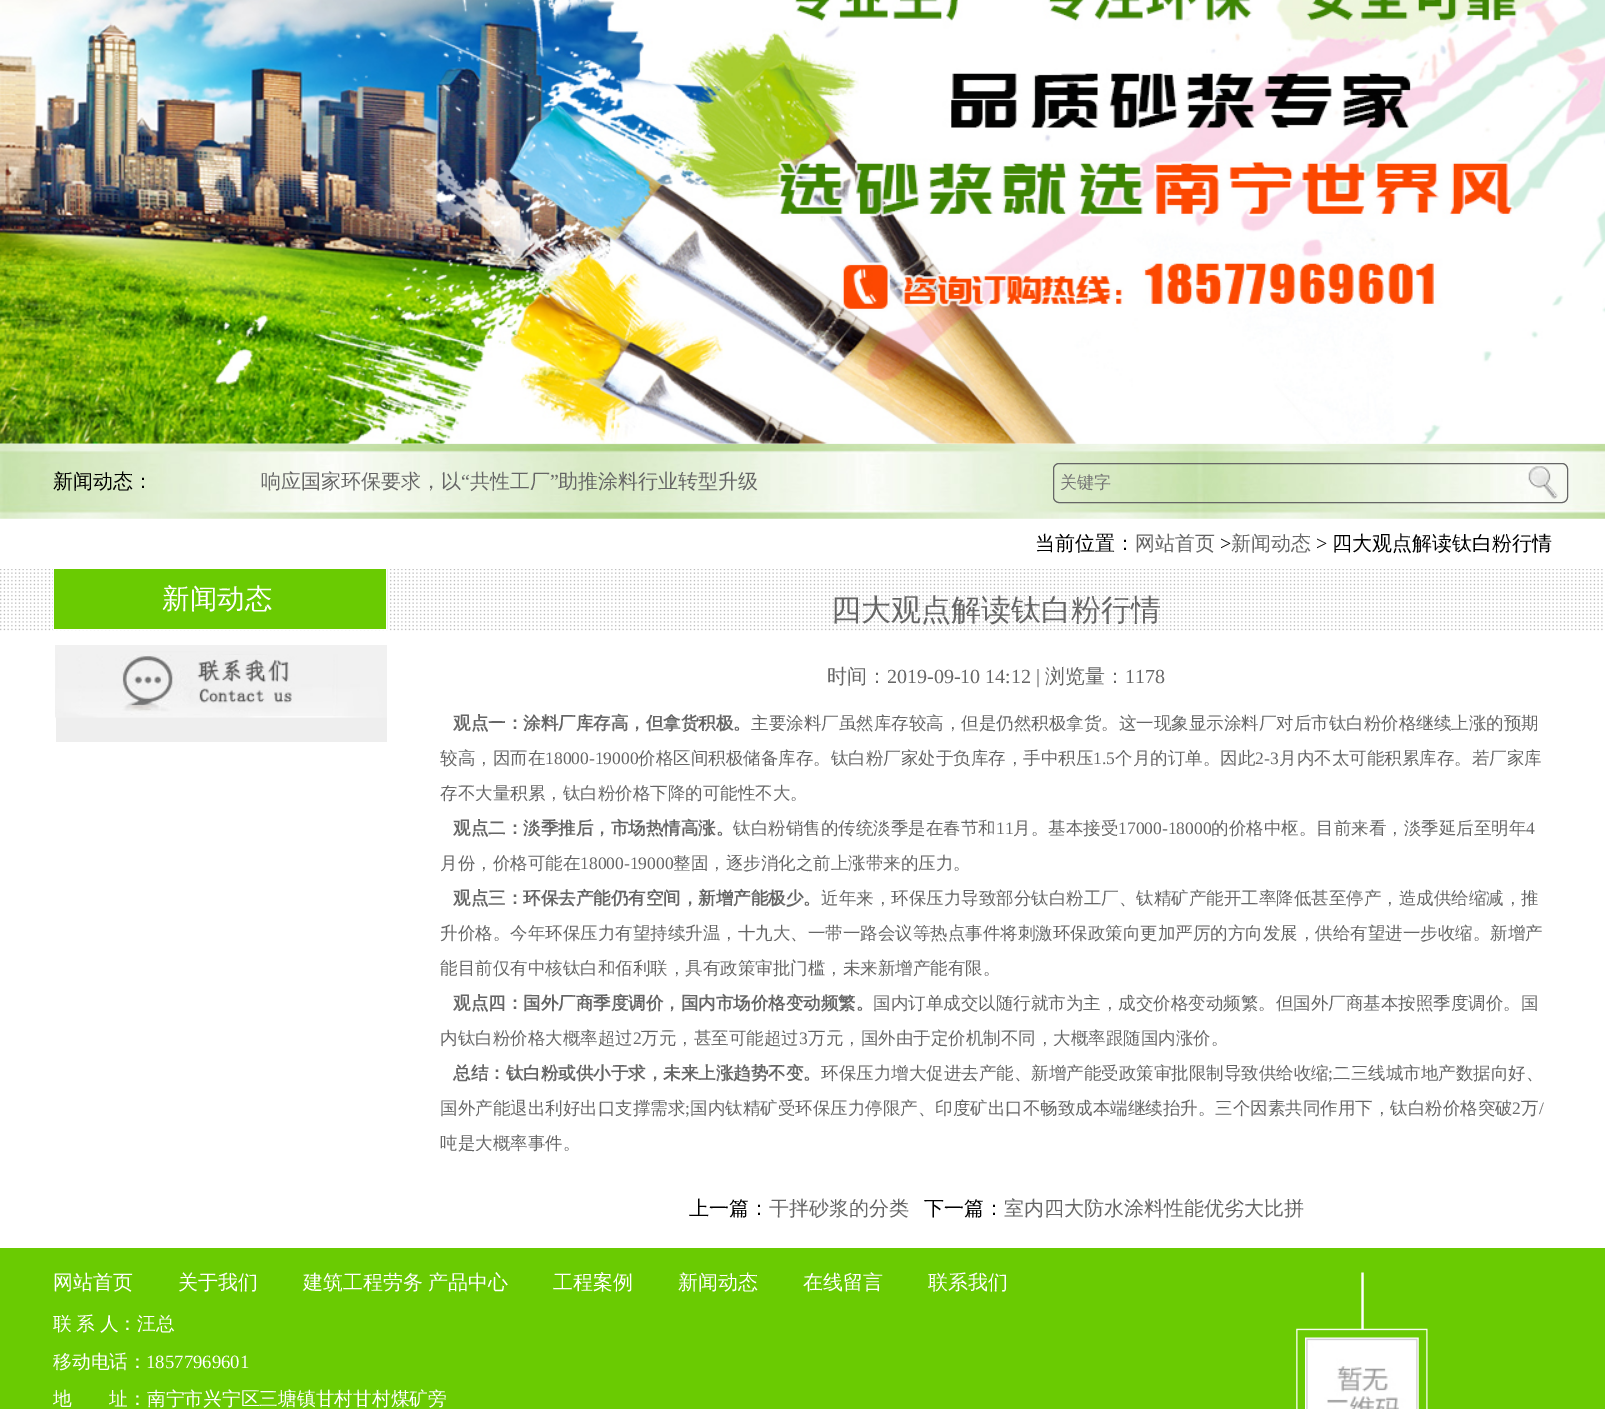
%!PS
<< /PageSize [1605 1409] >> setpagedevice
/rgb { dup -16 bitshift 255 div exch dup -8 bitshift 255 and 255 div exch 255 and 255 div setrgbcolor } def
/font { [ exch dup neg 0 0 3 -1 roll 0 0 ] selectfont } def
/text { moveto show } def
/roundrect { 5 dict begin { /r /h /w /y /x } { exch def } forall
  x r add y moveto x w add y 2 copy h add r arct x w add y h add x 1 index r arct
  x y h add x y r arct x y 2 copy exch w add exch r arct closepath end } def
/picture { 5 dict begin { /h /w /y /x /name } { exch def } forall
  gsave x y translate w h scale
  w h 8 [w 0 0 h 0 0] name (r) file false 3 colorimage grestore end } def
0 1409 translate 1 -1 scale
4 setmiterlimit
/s1 { /WenQuanYiZenHei-Medium 20 font 16#000000 rgb } def
/s2 { /WenQuanYiZenHei-Medium 20 font 16#666666 rgb } def
/s3 { /LiberationSerif-Regular 20 font 16#666666 rgb } def
/s4 { /WenQuanYiZenHei-Medium 17 font 16#757575 rgb } def
/s5 { /LiberationSerif-Regular 20 font 16#000000 rgb } def
/s6 { /WenQuanYiZenHei-Medium 27.5 font 16#FFFFFF rgb } def
/s7 { /WenQuanYiZenHei-Medium 30 font 16#666666 rgb } def
/s8 { /WenQuanYiZenHei-Bold 17.5 font 16#666666 rgb } def
/s9 { /WenQuanYiZenHei-Medium 17.5 font 16#666666 rgb } def
/s10 { /LiberationSerif-Regular 17.5 font 16#666666 rgb } def
/s11 { /WenQuanYiZenHei-Medium 20 font 16#FFFFFF rgb } def
/s12 { /WenQuanYiZenHei-Medium 18.75 font 16#FFFFFF rgb } def
/s13 { /LiberationSerif-Regular 18.75 font 16#FFFFFF rgb } def
16#FFFFFF rgb
0 0 1605 1409 rectfill
(pic2.raw) 0 443 1605 76 picture
(pic1.raw) 0 0 1605 444 picture
s1
(新闻动态：) 53 488 text
s2
(响应国家环保要求，以) 261 488 text
s3
(“) 461 488 text
s2
(共性工厂) 470 488 text
s3
(”) 550 488 text
s2
(助推涂料行业转型升级) 558 488 text
1053.5 463.5 514 39 5.5 roundrect stroke
s4
(关键字) 1060 488 text
(pic3.raw) 1528 466 30 33 picture
(pic4.raw) 0 569 1603 62 picture
s1
(当前位置：) 1035 550 text
s2
(网站首页) 1135 550 text
s5
(>) 1220 550 text
s2
(新闻动态) 1231 550 text
s5
(>) 1316 550 text
s1
(四大观点解读钛白粉行情) 1332 550 text
16#EEEEEE rgb
387 569 1 60 rectfill
16#FFFFFF rgb
386 569 1 61 rectfill
53 629 335 1 rectfill
53 569 1 61 rectfill
16#6ACB02 rgb
54 569 332 60 rectfill
s6
(新闻动态) 162 608 text
16#EEEEEE rgb
56 717 331 25 rectfill
(pic5.raw) 55 645 332 73 picture
s7
(四大观点解读钛白粉行情) 831 620 text
s2
(时间：) 827 683 text
s3
(2019-09-10 14:12 |) 887 683 text
s2
(浏览量：) 1045 683 text
s3
(1178) 1125 683 text
s8
(观点一：涂料厂库存高，但拿货积极。) 453 729 text
s9
(主要涂料厂虽然库存较高，但是仍然积极拿货。这一现象显示涂料厂对后市钛白粉价格继续上涨的预期) 751 729 text
(较高，因而在) 440 764 text
s10
(18000-19000) 545 764 text
s9
(价格区间积极储备库存。钛白粉厂家处于负库存，手中积压) 638 764 text
s10
(1.5) 1093 764 text
s9
(个月的订单。因此) 1115 764 text
s10
(2-3) 1255 764 text
s9
(月内不太可能积累库存。若厂家库) 1279 764 text
(存不大量积累，钛白粉价格下降的可能性不大。) 440 799 text
s8
(观点二：淡季推后，市场热情高涨。) 453 834 text
s9
(钛白粉销售的传统淡季是在春节和) 733 834 text
s10
(11) 996 834 text
s9
(月。基本接受) 1013 834 text
s10
(17000-18000) 1118 834 text
s9
(的价格中枢。目前来看，淡季延后至明年) 1211 834 text
s10
(4) 1526 834 text
s9
(月份，价格可能在) 440 869 text
s10
(18000-19000) 580 869 text
s9
(整固，逐步消化之前上涨带来的压力。) 673 869 text
s8
(观点三：环保去产能仍有空间，新增产能极少。) 453 904 text
s9
(近年来，环保压力导致部分钛白粉工厂、钛精矿产能开工率降低甚至停产，造成供给缩减，推) 821 904 text
(升价格。今年环保压力有望持续升温，十九大、一带一路会议等热点事件将刺激环保政策向更加严厉的方向发展，供给有望进一步收缩。新增产) 440 939 text
(能目前仅有中核钛白和佰利联，具有政策审批门槛，未来新增产能有限。) 440 974 text
s8
(观点四：国外厂商季度调价，国内市场价格变动频繁。) 453 1009 text
s9
(国内订单成交以随行就市为主，成交价格变动频繁。但国外厂商基本按照季度调价。国) 873 1009 text
(内钛白粉价格大概率超过) 440 1044 text
s10
(2) 633 1044 text
s9
(万元，甚至可能超过) 641 1044 text
s10
(3) 799 1044 text
s9
(万元，国外由于定价机制不同，大概率跟随国内涨价。) 808 1044 text
s8
(总结：钛白粉或供小于求，未来上涨趋势不变。) 453 1079 text
s9
(环保压力增大促进去产能、新增产能受政策审批限制导致供给收缩) 821 1079 text
s10
(;) 1328 1079 text
s9
(二三线城市地产数据向好、) 1333 1079 text
(国外产能退出利好出口支撑需求) 440 1114 text
s10
(;) 685 1114 text
s9
(国内钛精矿受环保压力停限产、印度矿出口不畅致成本端继续抬升。三个因素共同作用下，钛白粉价格突破) 690 1114 text
s10
(2) 1512 1114 text
s9
(万) 1521 1114 text
s10
(/) 1539 1114 text
s9
(吨是大概率事件。) 440 1149 text
s1
(上一篇：) 689 1215 text
s2
(干拌砂浆的分类) 769 1215 text
s1
(下一篇：) 924 1215 text
s2
(室内四大防水涂料性能优劣大比拼) 1004 1215 text
16#6ACB02 rgb
0 1248 1605 161 rectfill
s11
(网站首页) 53 1289 text
(关于我们) 178 1289 text
(建筑工程劳务) 303 1289 text
(产品中心) 428 1289 text
(工程案例) 553 1289 text
(新闻动态) 678 1289 text
(在线留言) 803 1289 text
(联系我们) 928 1289 text
/WenQuanYiZenHei-Medium 18.75 font
53 1330 moveto -1 0 32 (联 系 人：汪总) widthshow
(移动电话：) 53 1368 text
s13
(18577969601) 146 1368 text
s12
(地　　址：南宁市兴宁区三塘镇甘村甘村煤矿旁) 53 1405 text
(pic6.raw) 1296 1272 132 137 picture
(pic7.raw) 1305 1337 114 72 picture
showpage
